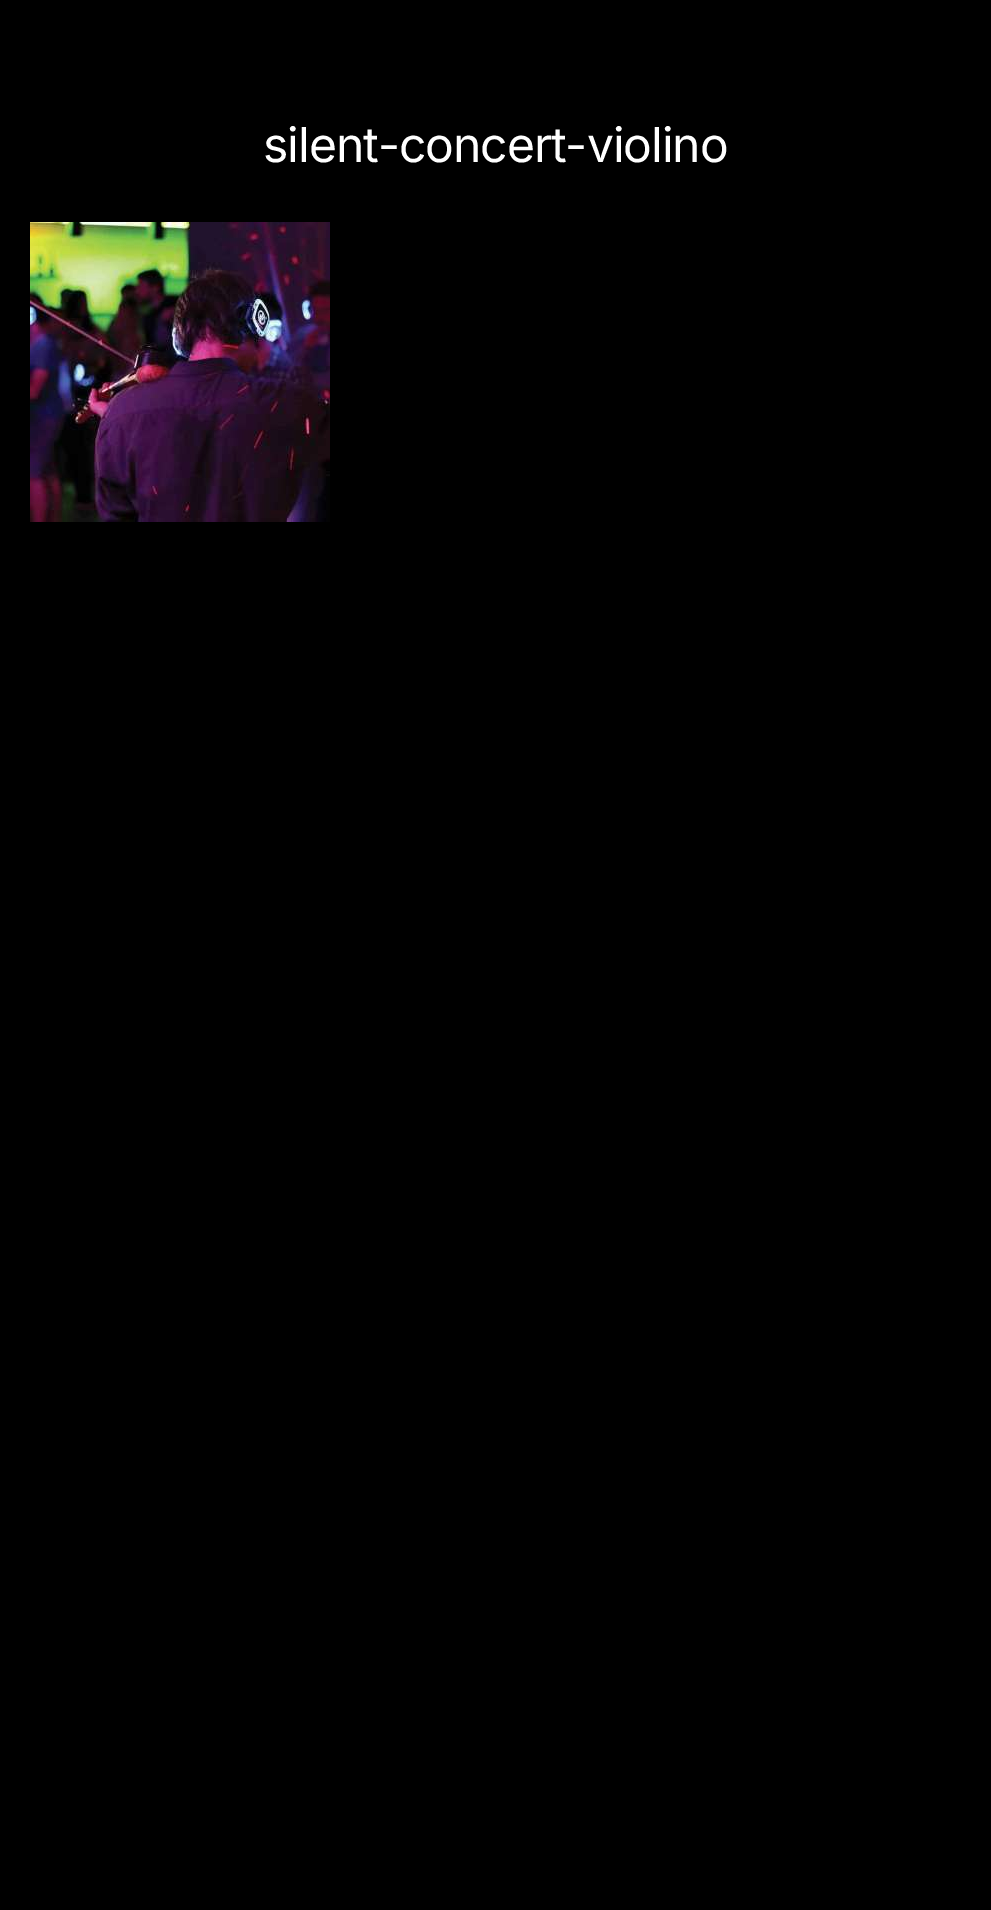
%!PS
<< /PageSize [991 1910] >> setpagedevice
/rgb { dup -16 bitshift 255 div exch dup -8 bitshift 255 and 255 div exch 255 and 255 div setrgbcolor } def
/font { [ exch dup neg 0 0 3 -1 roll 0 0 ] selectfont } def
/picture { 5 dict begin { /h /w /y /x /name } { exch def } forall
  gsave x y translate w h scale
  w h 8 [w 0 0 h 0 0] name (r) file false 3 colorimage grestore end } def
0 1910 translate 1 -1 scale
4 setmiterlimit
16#000000 rgb
0 0 991 1910 rectfill
/Inter-Regular 48 font
16#FFFFFF rgb
263 162 moveto -1 0 (silent-concert-violino) ashow
(pic1.raw) 30 222 300 300 picture
showpage
